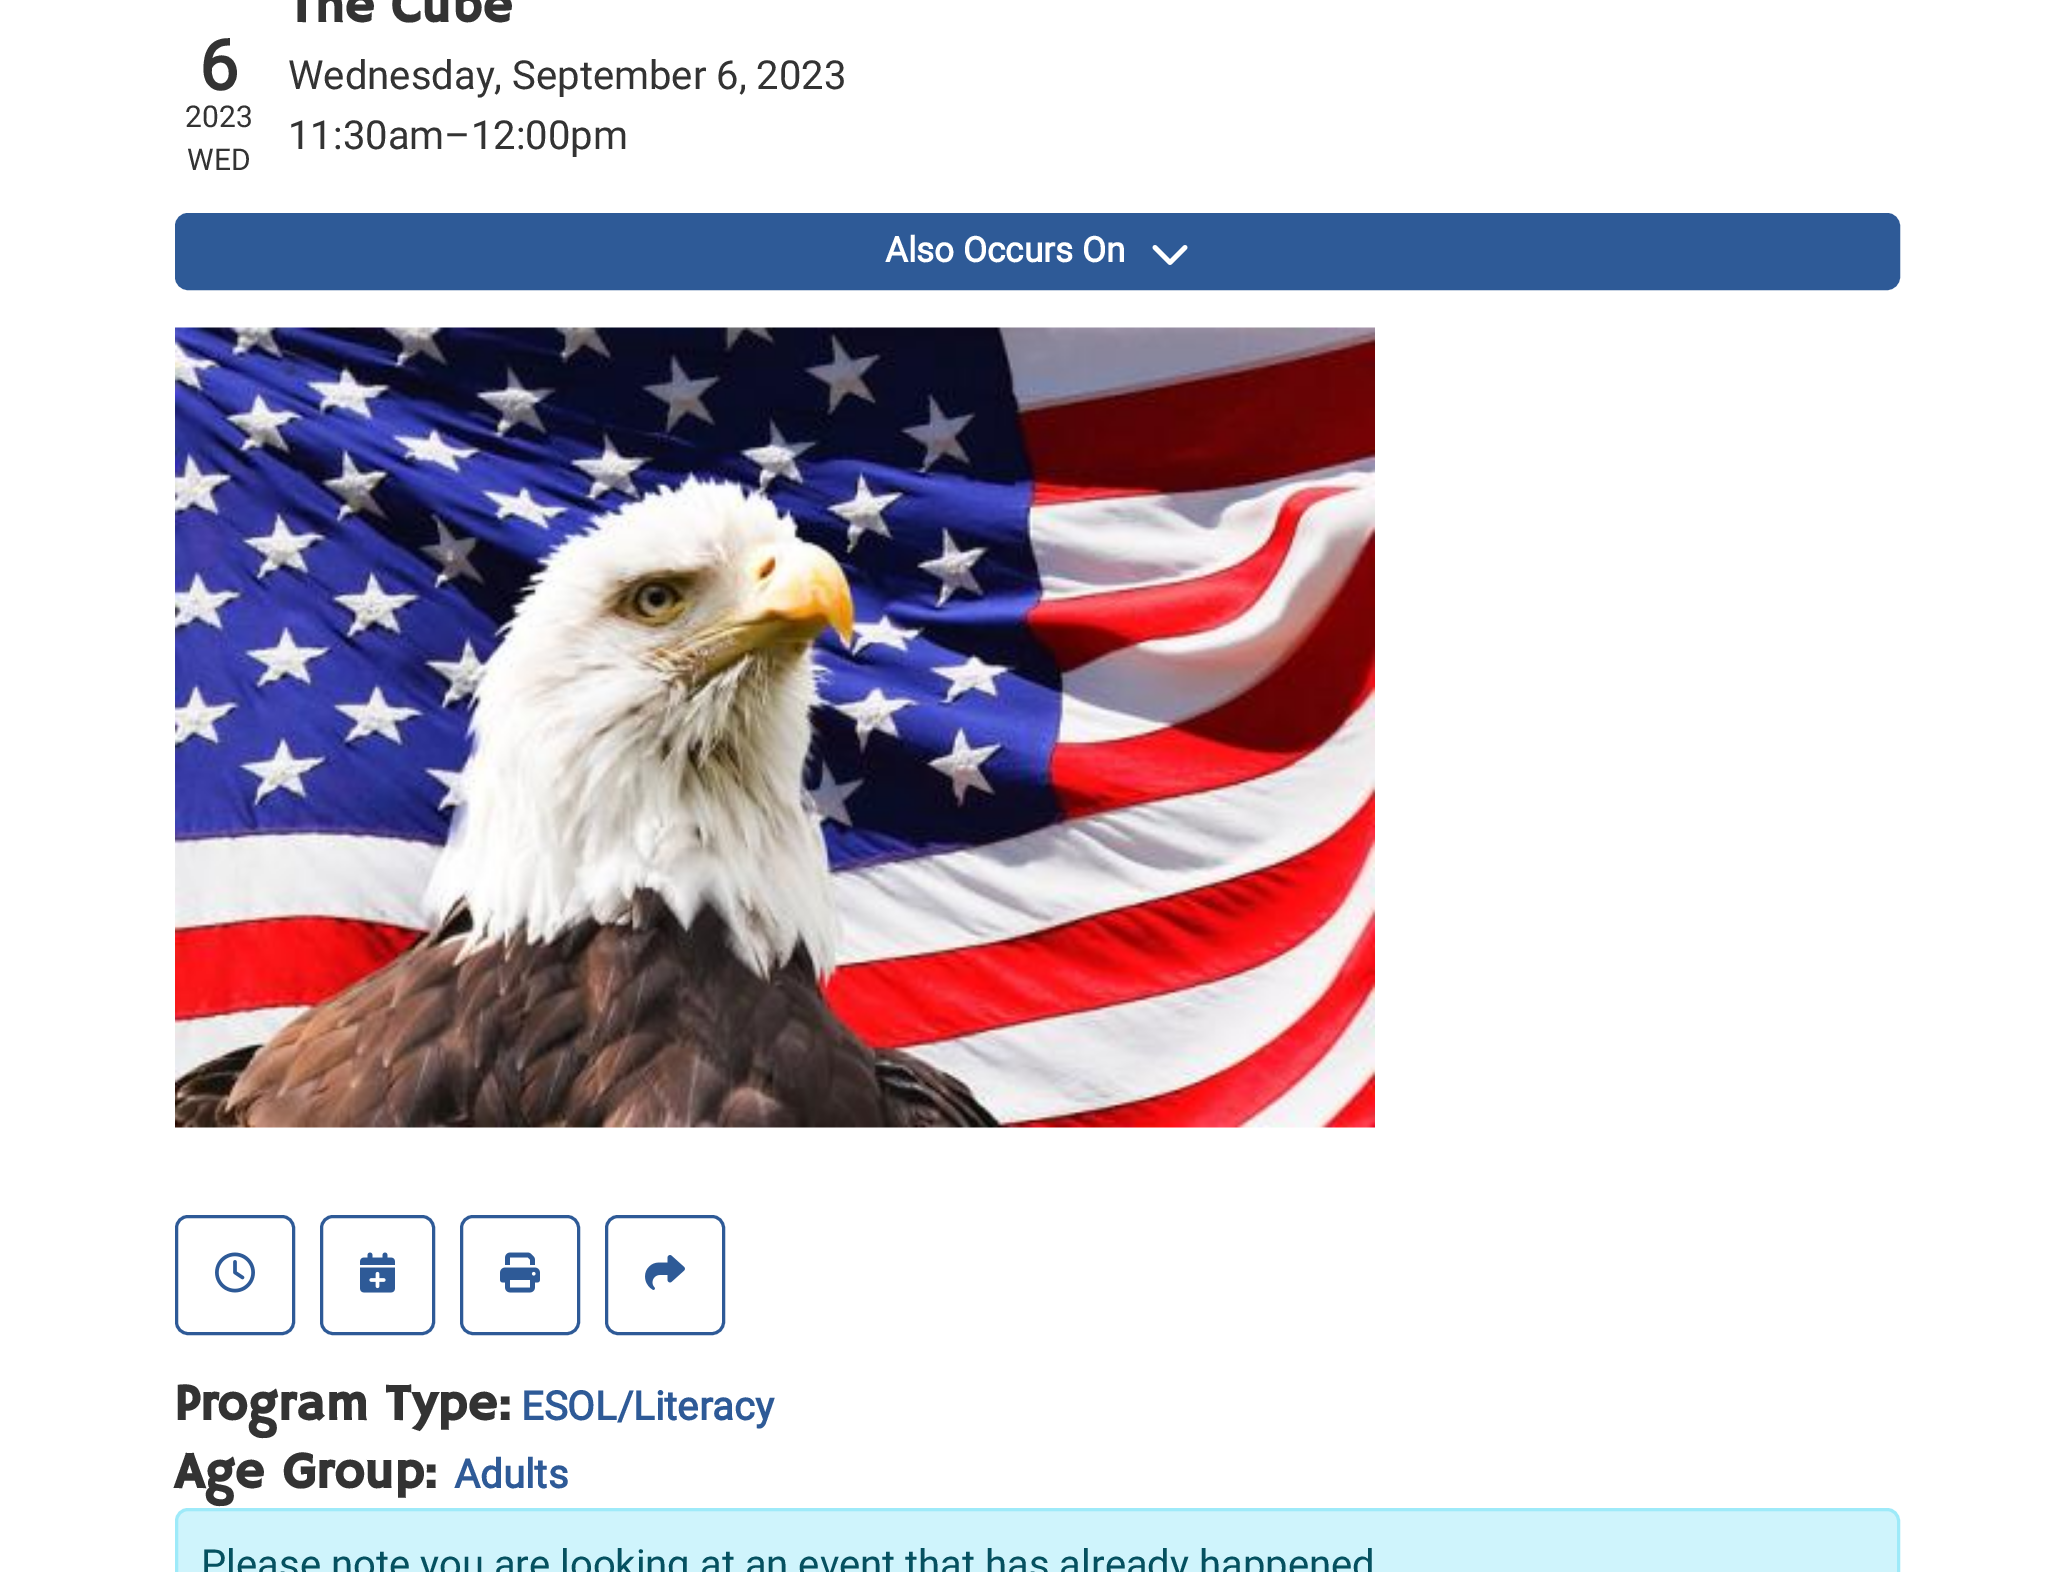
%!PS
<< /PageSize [2072 1572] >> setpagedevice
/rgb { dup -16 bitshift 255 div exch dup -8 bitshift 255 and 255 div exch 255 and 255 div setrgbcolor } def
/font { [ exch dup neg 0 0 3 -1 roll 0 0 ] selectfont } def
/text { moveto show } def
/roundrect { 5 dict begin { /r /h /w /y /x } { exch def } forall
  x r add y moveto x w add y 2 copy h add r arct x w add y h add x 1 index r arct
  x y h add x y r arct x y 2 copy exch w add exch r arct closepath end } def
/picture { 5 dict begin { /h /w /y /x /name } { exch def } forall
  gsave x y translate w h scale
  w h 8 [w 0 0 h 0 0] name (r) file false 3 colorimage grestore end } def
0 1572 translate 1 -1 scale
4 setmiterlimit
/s1 { /Roboto-Bold 70 font 16#333333 rgb } def
/s2 { /Roboto-Regular 30 font 16#333333 rgb } def
/s3 { /HammersmithOne-Bold 51.75 font 16#333333 rgb } def
/s4 { /Roboto-Regular 40 font 16#333333 rgb } def
/s5 { /Roboto-Bold 35 font 16#FFFFFF rgb } def
/s6 { /Roboto-Bold 40 font 16#2E5A97 rgb } def
/s7 { /Roboto-Regular 40 font 16#055160 rgb } def
16#FFFFFF rgb
0 0 2072 1572 rectfill
s1
(6) 199 90 text
s2
(2023) 185 127 text
(WED) 187 170 text
s3
(The Cube) 288 22 text
s4
(Wednesday, September 6, 2023) 288 89 text
(11:30am–12:00pm) 288 149 text
16#2E5A97 rgb
176.5 214.5 1722 74 11.5 roundrect gsave fill grestore
3 setlinewidth
stroke
s5
(Also Occurs On) 885 262 text
(pic1.raw) 1152 245 36 20 picture
(pic2.raw) 175 327 1200 801 picture
16#2E5A97 rgb
176.5 1216.5 117 117 11.5 roundrect stroke
(pic3.raw) 215 1252 40 41 picture
321.5 1216.5 112 117 11.5 roundrect stroke
(pic4.raw) 360 1252 35 41 picture
461.5 1216.5 117 117 11.5 roundrect stroke
(pic5.raw) 500 1252 40 41 picture
606.5 1216.5 117 117 11.5 roundrect stroke
(pic6.raw) 645 1255 40 35 picture
s3
(Program Type:) 174 1420 text
s6
(ESOL/Literacy) 521 1420 text
s3
(Age Group:) 174 1488 text
s6
(Adults) 454 1488 text
16#CFF4FC rgb
176.5 1509.5 1722 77 11.5 roundrect gsave fill grestore
16#9EEAF9 rgb
stroke
s7
(Please note you are looking at an event that has already happened) 201 1578 text
showpage
